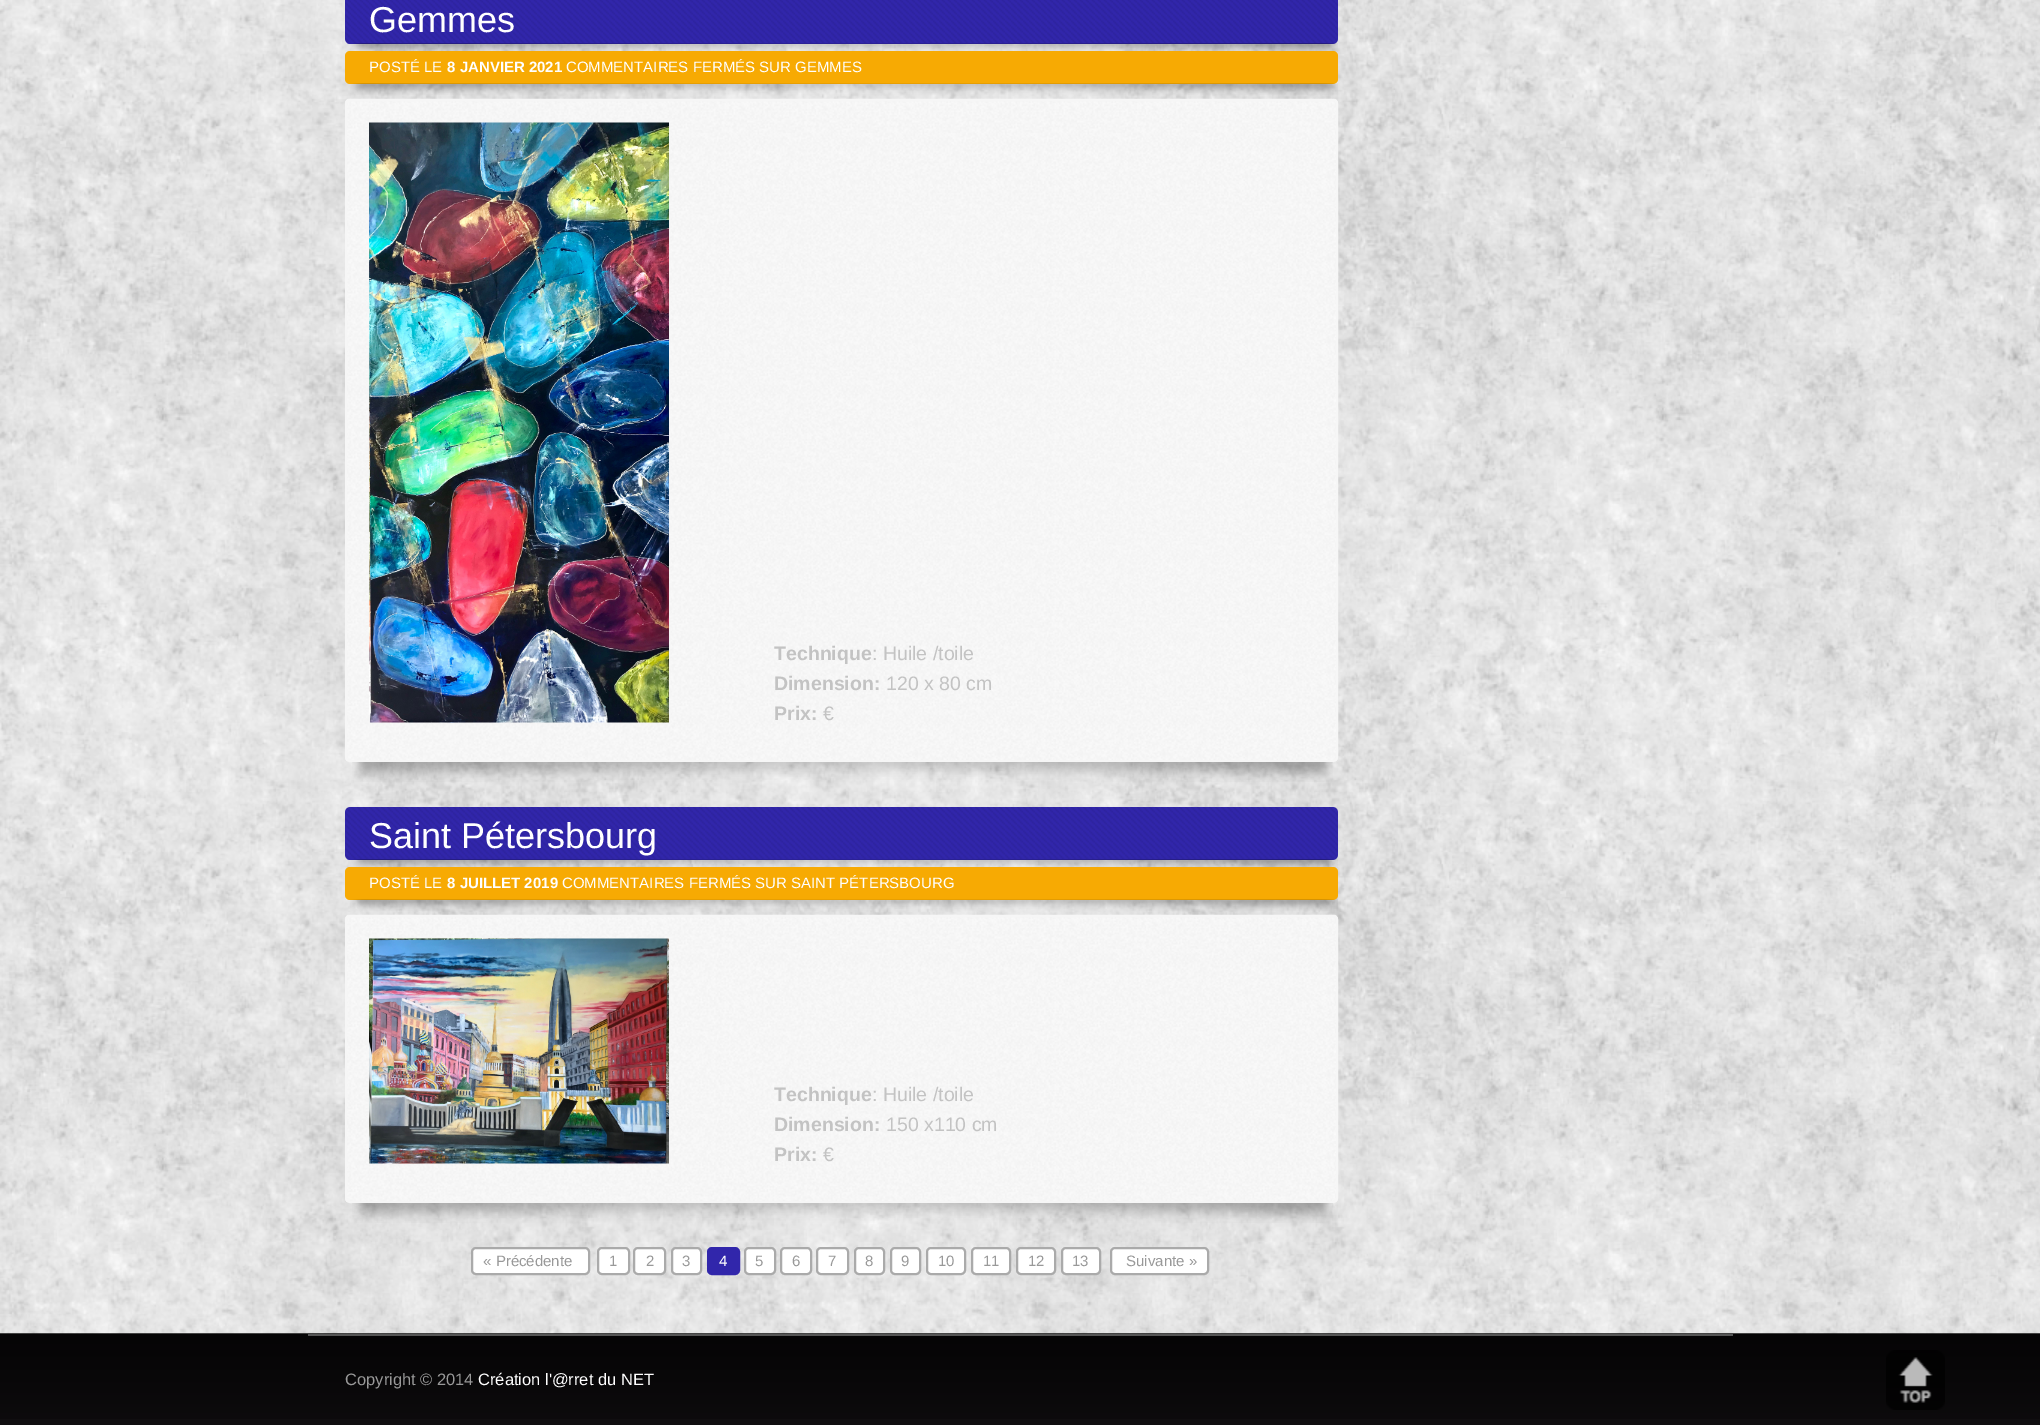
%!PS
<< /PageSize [2040 1425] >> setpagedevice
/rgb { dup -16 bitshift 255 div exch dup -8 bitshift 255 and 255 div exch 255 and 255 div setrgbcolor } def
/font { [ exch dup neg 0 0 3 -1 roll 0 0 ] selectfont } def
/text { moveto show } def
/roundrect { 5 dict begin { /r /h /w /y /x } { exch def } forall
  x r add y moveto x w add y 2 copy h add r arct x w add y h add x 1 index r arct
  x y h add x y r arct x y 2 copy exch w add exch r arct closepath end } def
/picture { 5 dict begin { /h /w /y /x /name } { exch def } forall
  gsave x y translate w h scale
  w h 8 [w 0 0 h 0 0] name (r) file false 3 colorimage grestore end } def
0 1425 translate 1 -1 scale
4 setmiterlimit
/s1 { /LiberationSans-Regular 36 font 16#FFFFFF rgb } def
/s2 { /LiberationSans-Regular 15 font 16#FFFFFF rgb } def
/s3 { /LiberationSans-Bold 15 font 16#FFFFFF rgb } def
/s4 { /LiberationSans-Bold 19.5 font 16#C3C3C3 rgb } def
/s5 { /LiberationSans-Regular 19.5 font 16#C3C3C3 rgb } def
/s6 { /LiberationSans-Regular 15 font 16#999999 rgb } def
/s7 { /LiberationSans-Regular 16.5 font 16#999999 rgb } def
/s8 { /LiberationSans-Regular 16.5 font 16#FFFFFF rgb } def
16#FFFFFF rgb
0 0 2040 1425 rectfill
(pic1.raw) 0 0 2040 1334 picture
16#3126AB rgb
345 -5 993 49 5 roundrect fill
(pic2.raw) 345 0 993 43 picture
s1
(Gemmes) 369 32 text
(pic3.raw) 350 43 988 9 picture
16#F7AA03 rgb
345 51 993 33 5 roundrect fill
s2
(POSTÉ LE) 369 72 text
s3
(8 JANVIER 2021) 447 72 text
s2
(COMMENTAIRES FERMÉS SUR GEMMES) 566 72 text
(pic4.raw) 350 83 988 12 picture
(pic5.raw) 345 98 993 663 picture
16#F6F6F6 rgb
2 setlinewidth
346 100 991 661 4 roundrect stroke
(pic6.raw) 369 122 300 601 picture
s4
(Technique) 774 660 text
s5
(: Huile /toile) 872 660 text
s4
(Dimension:) 774 690 text
s5
(120 x 80 cm) 886 690 text
s4
(Prix:) 774 720 text
s5
(€) 823 720 text
(pic7.raw) 352 762 981 20 picture
16#3126AB rgb
345 807 993 53 5 roundrect fill
(pic8.raw) 345 807 993 52 picture
s1
(Saint Pétersbourg) 369 848 text
(pic9.raw) 350 859 988 9 picture
16#F7AA03 rgb
345 867 993 33 5 roundrect fill
s2
(POSTÉ LE) 369 888 text
s3
(8 JUILLET 2019) 447 888 text
s2
(COMMENTAIRES FERMÉS SUR SAINT PÉTERSBOURG) 562 888 text
(pic10.raw) 350 899 988 12 picture
(pic11.raw) 345 914 993 288 picture
16#F6F6F6 rgb
346 916 991 286 4 roundrect stroke
(pic12.raw) 369 938 300 226 picture
s4
(Technique) 774 1101 text
s5
(: Huile /toile) 872 1101 text
s4
(Dimension:) 774 1131 text
s5
(150 x110 cm) 886 1131 text
s4
(Prix:) 774 1161 text
s5
(€) 823 1161 text
(pic13.raw) 352 1203 981 20 picture
16#FFFFFF rgb
472 1248 117 26 4 roundrect gsave fill grestore
16#AAAAAA rgb
stroke
s6
(« Précédente) 483 1266 text
16#FFFFFF rgb
598 1248 31 26 4 roundrect gsave fill grestore
16#AAAAAA rgb
stroke
s6
(1) 609 1266 text
16#FFFFFF rgb
634 1248 31 26 4 roundrect gsave fill grestore
16#AAAAAA rgb
stroke
s6
(2) 646 1266 text
16#FFFFFF rgb
672 1248 29 26 4 roundrect gsave fill grestore
16#AAAAAA rgb
stroke
s6
(3) 682 1266 text
16#3126AB rgb
708 1248 31 26 4 roundrect gsave fill grestore
stroke
s2
(4) 719 1266 text
745 1248 30 26 4 roundrect gsave fill grestore
16#AAAAAA rgb
stroke
s6
(5) 755 1266 text
16#FFFFFF rgb
781 1248 30 26 4 roundrect gsave fill grestore
16#AAAAAA rgb
stroke
s6
(6) 792 1266 text
16#FFFFFF rgb
817 1248 31 26 4 roundrect gsave fill grestore
16#AAAAAA rgb
stroke
s6
(7) 828 1266 text
16#FFFFFF rgb
855 1248 29 26 4 roundrect gsave fill grestore
16#AAAAAA rgb
stroke
s6
(8) 865 1266 text
16#FFFFFF rgb
891 1248 29 26 4 roundrect gsave fill grestore
16#AAAAAA rgb
stroke
s6
(9) 901 1266 text
16#FFFFFF rgb
927 1248 38 26 4 roundrect gsave fill grestore
16#AAAAAA rgb
stroke
s6
(10) 938 1266 text
16#FFFFFF rgb
972 1248 38 26 4 roundrect gsave fill grestore
16#AAAAAA rgb
stroke
s6
(11) 983 1266 text
16#FFFFFF rgb
1017 1248 38 26 4 roundrect gsave fill grestore
16#AAAAAA rgb
stroke
s6
(12) 1028 1266 text
16#FFFFFF rgb
1062 1248 38 26 4 roundrect gsave fill grestore
16#AAAAAA rgb
stroke
s6
(13) 1072 1266 text
16#FFFFFF rgb
1111 1248 97 26 4 roundrect gsave fill grestore
16#AAAAAA rgb
stroke
s6
(Suivante ») 1126 1266 text
16#100E10 rgb
0 1334 2040 91 rectfill
(pic14.raw) 0 1333 2040 86 picture
16#555555 rgb
308 1334 1425 2 rectfill
s7
(Copyright © 2014) 345 1385 text
s8
(Création l'@rret du NET) 478 1385 text
(pic15.raw) 1886 1350 59 60 picture
showpage
